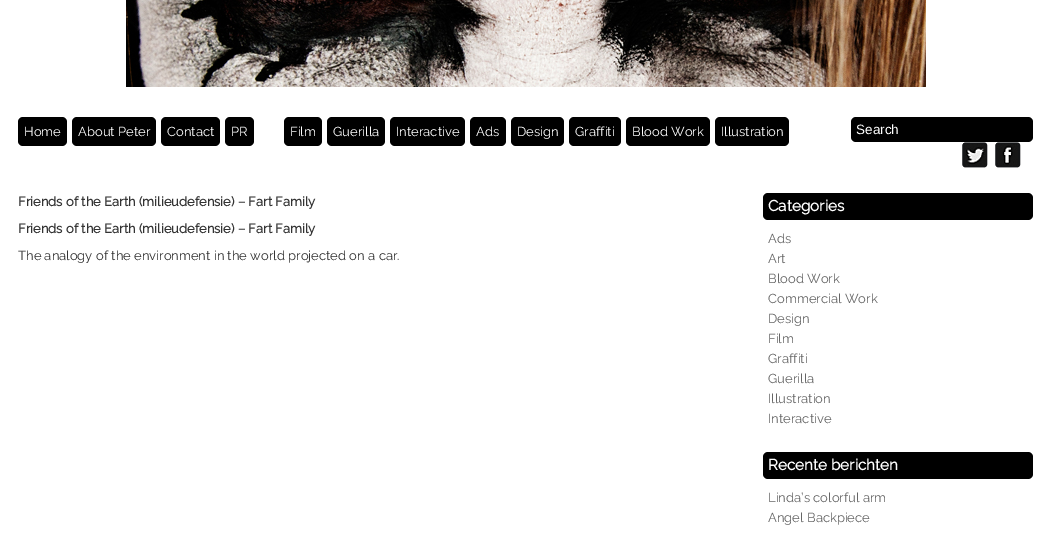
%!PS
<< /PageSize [1051 537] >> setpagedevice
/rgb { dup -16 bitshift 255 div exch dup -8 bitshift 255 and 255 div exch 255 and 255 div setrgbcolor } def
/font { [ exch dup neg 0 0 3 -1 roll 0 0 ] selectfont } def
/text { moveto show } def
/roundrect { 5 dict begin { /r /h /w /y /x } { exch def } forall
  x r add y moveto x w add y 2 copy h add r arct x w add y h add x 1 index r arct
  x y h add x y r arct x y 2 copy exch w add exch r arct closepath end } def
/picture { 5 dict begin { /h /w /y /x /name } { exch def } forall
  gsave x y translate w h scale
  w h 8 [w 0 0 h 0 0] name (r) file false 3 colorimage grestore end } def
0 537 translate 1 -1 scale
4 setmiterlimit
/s1 { /Raleway-Thin 13 font 16#FFFFFF rgb } def
/s2 { /LiberationSans-Regular 13.5 font 16#FFFFFF rgb } def
/s3 { /Raleway-Bold 13 font 16#333333 rgb } def
/s4 { /Raleway-Thin 13 font 16#333333 rgb } def
/s5 { /Raleway-Bold 15.25 font 16#FFFFFF rgb } def
/s6 { /Raleway-Thin 13 font 16#666666 rgb } def
16#FFFFFF rgb
0 0 1051 537 rectfill
(pic1.raw) 126 0 800 87 picture
16#000000 rgb
18 117 49 29 5 roundrect fill
s1
(Home) 24 136 text
16#000000 rgb
72 117 84 29 5 roundrect fill
s1
(About Peter) 78 136 text
16#000000 rgb
161 117 59 29 5 roundrect fill
s1
(Contact) 167 136 text
16#000000 rgb
225 117 29 29 5 roundrect fill
s1
(PR) 231 136 text
16#000000 rgb
284 117 38 29 5 roundrect fill
s1
(Film) 290 136 text
16#000000 rgb
327 117 58 29 5 roundrect fill
s1
(Guerilla) 333 136 text
16#000000 rgb
390 117 75 29 5 roundrect fill
s1
(Interactive) 396 136 text
16#000000 rgb
470 117 36 29 5 roundrect fill
s1
(Ads) 476 136 text
16#000000 rgb
511 117 53 29 5 roundrect fill
s1
(Design) 517 136 text
16#000000 rgb
569 117 52 29 5 roundrect fill
s1
(Graffiti) 575 136 text
16#000000 rgb
626 117 84 29 5 roundrect fill
s1
(Blood Work) 632 136 text
16#000000 rgb
715 117 74 29 5 roundrect fill
s1
(Illustration) 721 136 text
16#000000 rgb
851 117 182 25 5 roundrect fill
s2
(Search) 856 134 text
(pic2.raw) 962 142 26 26 picture
(pic3.raw) 995 142 26 26 picture
s3
(Friends of the Earth \(milieudefensie\) – Fart Family) 18 206 text
(Friends of the Earth \(milieudefensie\) – Fart Family) 18 233 text
s4
(The analogy of the environment in the world projected on a car.) 18 260 text
16#000000 rgb
763 193 270 27 5 roundrect fill
s5
(Categories) 768 211 text
s6
(Ads) 768 243 text
(Art) 768 263 text
(Blood Work) 768 283 text
(Commercial Work) 768 303 text
(Design) 768 323 text
(Film) 768 343 text
(Graffiti) 768 363 text
(Guerilla) 768 383 text
(Illustration) 768 403 text
(Interactive) 768 423 text
16#000000 rgb
763 452 270 27 5 roundrect fill
s5
(Recente berichten) 768 470 text
s6
(Linda’s colorful arm) 768 502 text
(Angel Backpiece) 768 522 text
showpage
